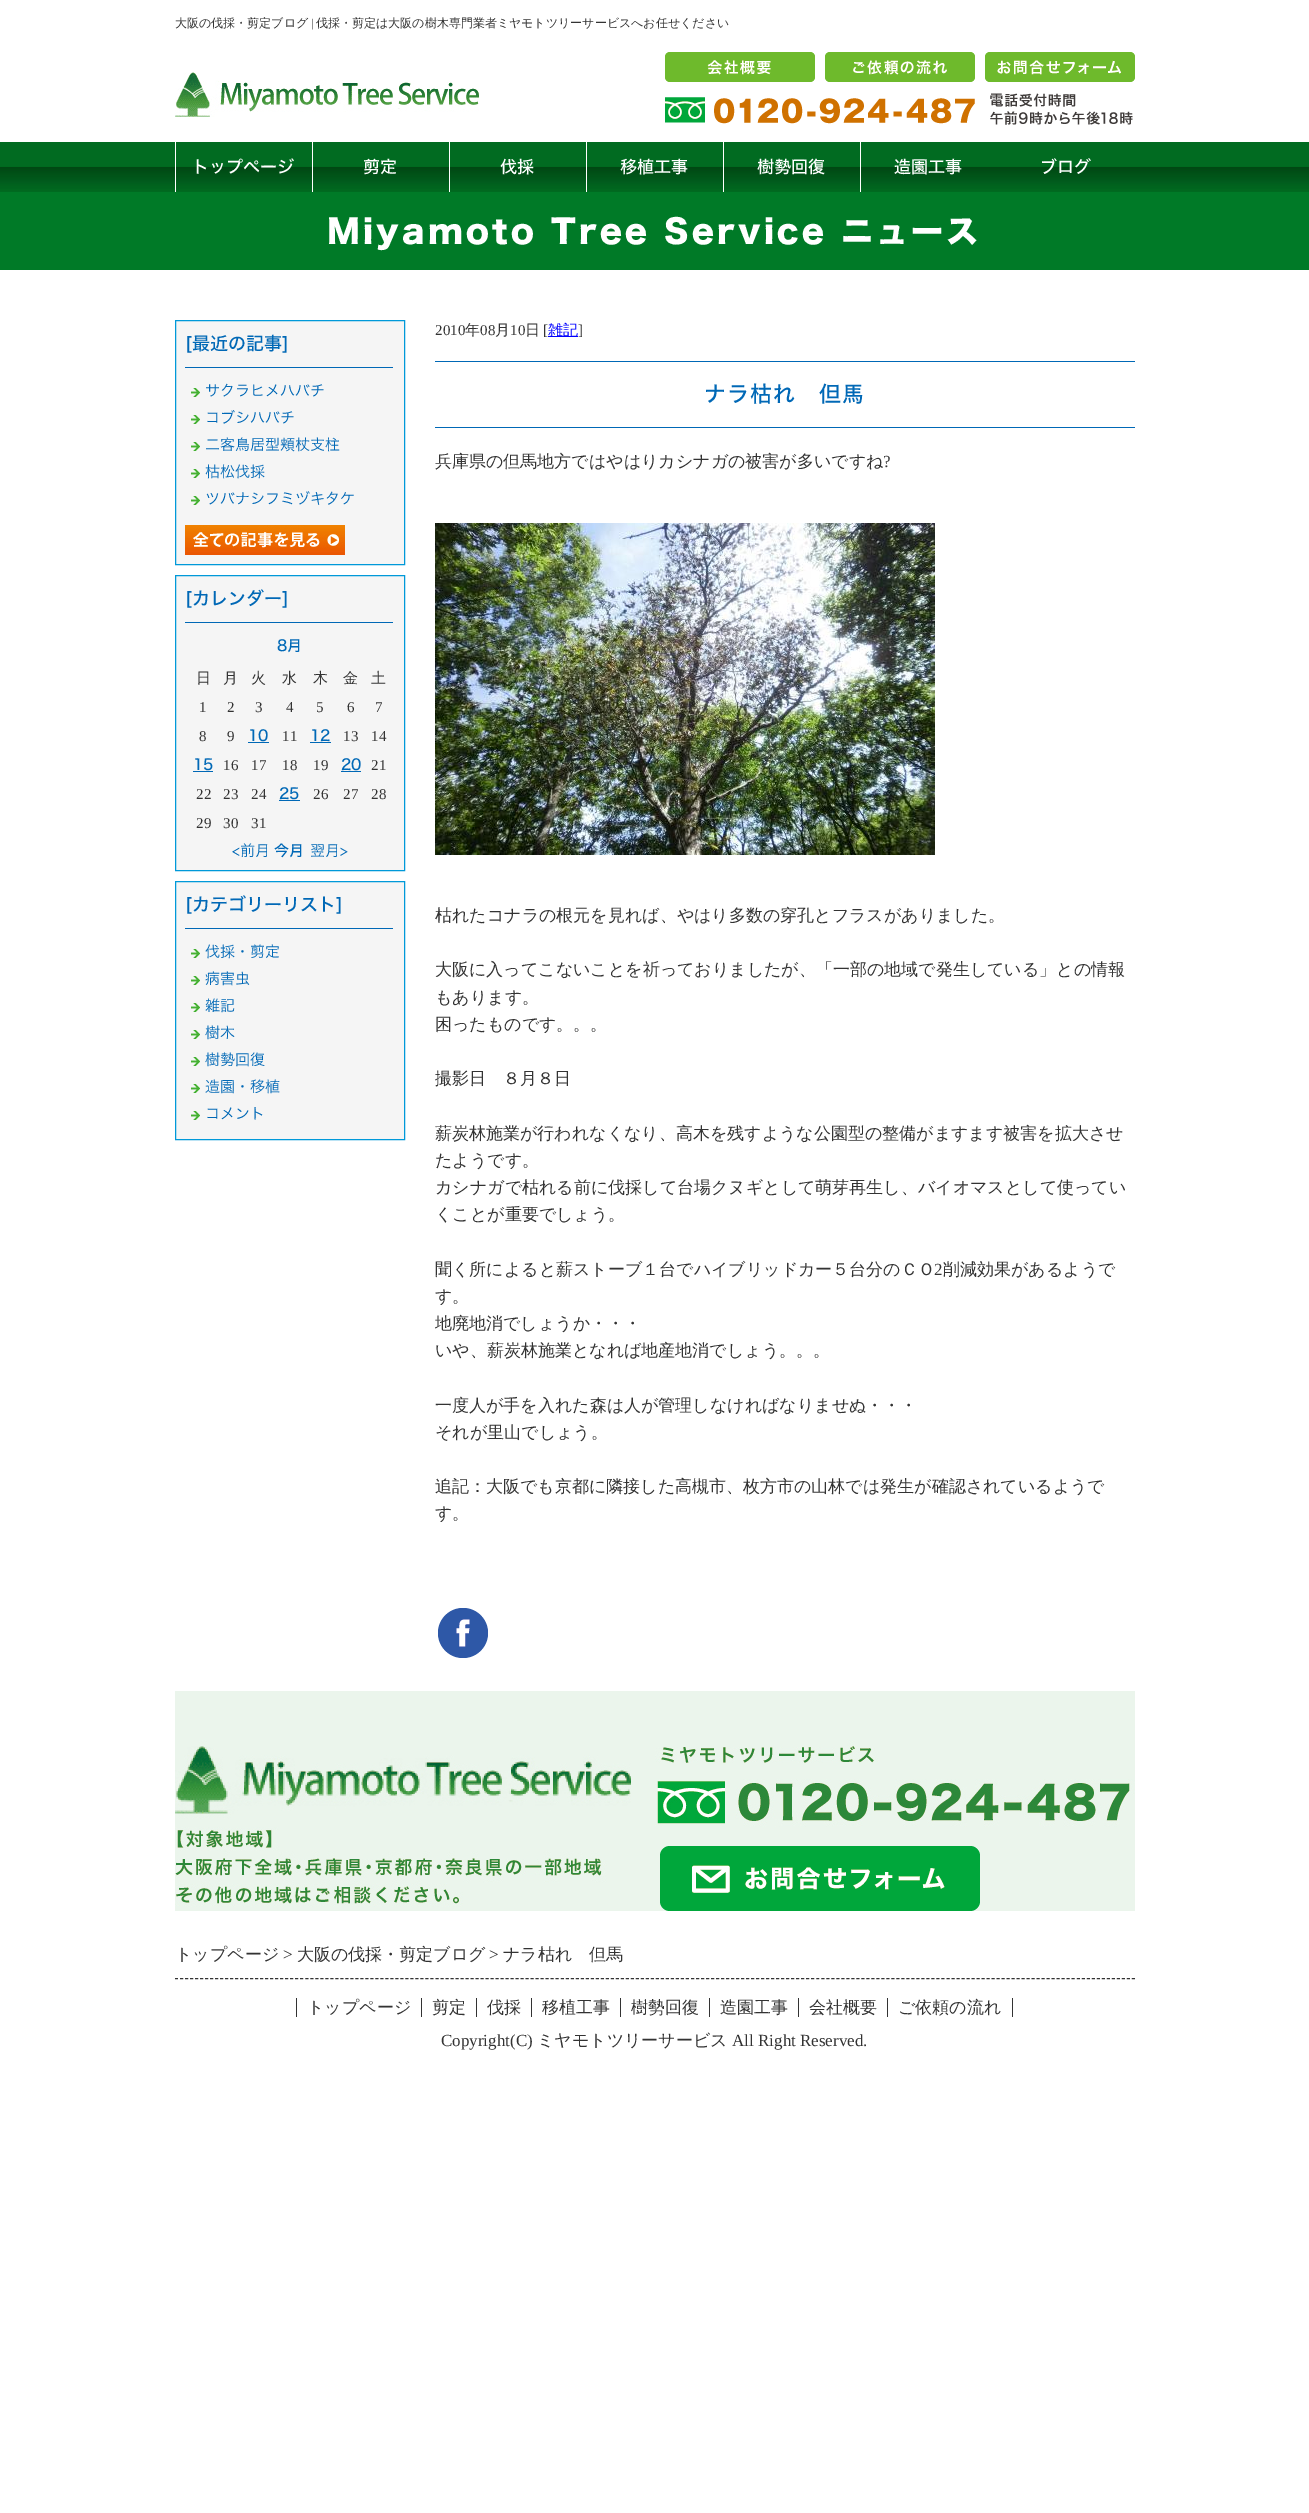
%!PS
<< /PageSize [1309 2513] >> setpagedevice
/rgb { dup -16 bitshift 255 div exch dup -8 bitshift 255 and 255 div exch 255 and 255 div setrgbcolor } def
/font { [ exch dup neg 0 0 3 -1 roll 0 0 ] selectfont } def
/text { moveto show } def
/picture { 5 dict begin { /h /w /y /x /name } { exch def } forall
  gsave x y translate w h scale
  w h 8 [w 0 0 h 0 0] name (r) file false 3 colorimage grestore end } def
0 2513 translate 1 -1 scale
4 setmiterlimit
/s1 { /WenQuanYiZenHei-Medium 12 font 16#333333 rgb } def
/s2 { /LiberationSerif-Regular 12 font 16#333333 rgb } def
/s3 { /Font-Medium 17 font 16#FFFFFF rgb } def
/s4 { /Font-Medium 18 font 16#0068B6 rgb } def
/s5 { /Font-Light 15 font 16#0068B6 rgb } def
/s6 { /Font-Medium 15 font 16#0068B6 rgb } def
/s7 { /WenQuanYiZenHei-Medium 15 font 16#333333 rgb } def
/s8 { /LiberationSerif-Regular 15 font 16#333333 rgb } def
/s9 { /WenQuanYiZenHei-Medium 15 font 16#0000FF rgb } def
/s10 { /WenQuanYiZenHei-Medium 17 font 16#333333 rgb } def
/s11 { /LiberationSerif-Regular 17 font 16#333333 rgb } def
16#FFFFFF rgb
0 0 1309 2513 rectfill
s1
(大阪の伐採・剪定ブログ) 175 27 text
s2
(|) 311 27 text
s1
(伐採・剪定は大阪の樹木専門業者ミヤモトツリーサービスへお任せください) 316 27 text
(pic1.raw) 665 93 468 32 picture
(pic2.raw) 665 52 150 30 picture
(pic3.raw) 825 52 150 30 picture
(pic4.raw) 985 52 150 30 picture
(pic5.raw) 175 72 304 45 picture
(pic6.raw) 0 142 1309 50 picture
16#FFFFFF rgb
175 142 1 50 rectfill
s3
(トップページ) 192 173 text
312 142 1 50 rectfill
(剪定) 363 173 text
449 142 1 50 rectfill
(伐採) 500 173 text
586 142 1 50 rectfill
(移植工事) 620 173 text
723 142 1 50 rectfill
(樹勢回復) 757 173 text
860 142 1 50 rectfill
(造園工事) 894 173 text
(ブログ) 1040 173 text
16#007A27 rgb
0 192 1309 78 rectfill
/Font-ExtraBold 32 font
16#FFFFFF rgb
327 243 moveto 3.2 0 (Miyamoto Tree Service ニュース) ashow
16#F5F5F5 rgb
175.5 320.5 moveto 404.5 320.5 lineto 404.5 564.5 lineto 175.5 564.5 lineto closepath gsave fill grestore
16#0099D9 rgb
stroke
s4
([最近の記事]) 185 350 text
185 367 208 1 rectfill
(pic7.raw) 191 388 9 9 picture
s5
(サクラヒメハバチ) 205 396 text
(pic7.raw) 191 415 9 9 picture
(コブシハバチ) 205 423 text
(pic7.raw) 191 442 9 9 picture
(二客鳥居型頬杖支柱) 205 450 text
(pic7.raw) 191 469 9 9 picture
(枯松伐採) 205 477 text
(pic7.raw) 191 496 9 9 picture
(ツバナシフミヅキタケ) 205 504 text
(pic8.raw) 185 525 160 30 picture
16#F5F5F5 rgb
175.5 575.5 moveto 404.5 575.5 lineto 404.5 870.5 lineto 175.5 870.5 lineto closepath gsave fill grestore
16#0099D9 rgb
stroke
s4
([カレンダー]) 185 605 text
185 622 208 1 rectfill
s6
(8月) 277 651 text
s7
(日) 196 683 text
(月) 223 683 text
(火) 251 683 text
(水) 282 683 text
(木) 313 683 text
(金) 343 683 text
(土) 371 683 text
s8
(1) 199 712 text
(2) 227 712 text
(3) 255 712 text
(4) 286 712 text
(5) 316 712 text
(6) 347 712 text
(7) 375 712 text
(8) 199 741 text
(9) 227 741 text
s6
(10) 248 741 text
248 742 21 1 rectfill
s8
(11) 282 741 text
s6
(12) 310 741 text
310 742 21 1 rectfill
s8
(13) 343 741 text
(14) 371 741 text
s6
(15) 193 770 text
193 771 20 1 rectfill
s8
(16) 223 770 text
(17) 251 770 text
(18) 282 770 text
(19) 313 770 text
s6
(20) 341 770 text
341 771 20 1 rectfill
s8
(21) 371 770 text
(22) 196 799 text
(23) 223 799 text
(24) 251 799 text
s6
(25) 279 799 text
279 800 21 1 rectfill
s8
(26) 313 799 text
(27) 343 799 text
(28) 371 799 text
(29) 196 828 text
(30) 223 828 text
(31) 251 828 text
s5
(<前月) 232 856 text
s6
(今月) 274 856 text
s5
(翌月>) 310 856 text
16#F5F5F5 rgb
175.5 881.5 moveto 404.5 881.5 lineto 404.5 1139.5 lineto 175.5 1139.5 lineto closepath gsave fill grestore
16#0099D9 rgb
stroke
s4
([カテゴリーリスト]) 185 911 text
185 928 208 1 rectfill
(pic7.raw) 191 949 9 9 picture
s5
(伐採・剪定) 205 957 text
(pic7.raw) 191 976 9 9 picture
(病害虫) 205 984 text
(pic7.raw) 191 1003 9 9 picture
(雑記) 205 1011 text
(pic7.raw) 191 1030 9 9 picture
(樹木) 205 1038 text
(pic7.raw) 191 1057 9 9 picture
(樹勢回復) 205 1065 text
(pic7.raw) 191 1084 9 9 picture
(造園・移植) 205 1092 text
(pic7.raw) 191 1111 9 9 picture
(コメント) 205 1119 text
s8
(2010) 435 335 text
s7
(年) 465 335 text
s8
(08) 480 335 text
s7
(月) 495 335 text
s8
(10) 510 335 text
s7
(日) 525 335 text
s8
([) 543 335 text
16#0000FF rgb
548 336 30 1 rectfill
s9
(雑記) 548 335 text
s8
(]) 578 335 text
16#0068B6 rgb
435 361 700 1 rectfill
435 427 700 1 rectfill
/Font-Medium 22 font
704 402 moveto 1 0 (ナラ枯れ　但馬) ashow
s10
(兵庫県の但馬地方ではやはりカシナガの被害が多いですね) 435 467 text
s11
(?) 883 467 text
(pic9.raw) 435 523 500 332 picture
s10
(枯れたコナラの根元を見れば、やはり多数の穿孔とフラスがありました。) 435 921 text
(大阪に入ってこないことを祈っておりましたが、「一部の地域で発生している」との情報) 435 975 text
(もあります。) 435 1003 text
(困ったものです。。。) 435 1030 text
(撮影日　８月８日) 435 1084 text
(薪炭林施業が行われなくなり、高木を残すような公園型の整備がますます被害を拡大させ) 435 1139 text
(たようです。) 435 1166 text
(カシナガで枯れる前に伐採して台場クヌギとして萌芽再生し、バイオマスとして使ってい) 435 1193 text
(くことが重要でしょう。) 435 1220 text
(聞く所によると薪ストーブ１台でハイブリッドカー５台分のＣＯ) 435 1275 text
s11
(2) 934 1275 text
s10
(削減効果があるようで) 943 1275 text
(す。) 435 1302 text
(地廃地消でしょうか・・・) 435 1329 text
(いや、薪炭林施業となれば地産地消でしょう。。。) 435 1356 text
(一度人が手を入れた森は人が管理しなければなりませぬ・・・) 435 1411 text
(それが里山でしょう。) 435 1438 text
(追記：大阪でも京都に隣接した高槻市、枚方市の山林では発生が確認されているようで) 435 1492 text
(す。) 435 1519 text
(pic10.raw) 438 1608 50 50 picture
(pic11.raw) 175 1691 960 220 picture
(pic12.raw) 660 1846 320 65 picture
[3 2.01] 0 setdash
175 1978.5 moveto 1135 1978.5 lineto stroke
(トップページ) 175 1960 text
s11
(>) 283 1960 text
s10
(大阪の伐採・剪定ブログ) 297 1960 text
s11
(>) 489 1960 text
s10
(ナラ枯れ　但馬) 503 1960 text
(トップページ) 307 2013 text
296 1998 1 19 rectfill
(剪定) 432 2013 text
421 1998 1 19 rectfill
(伐採) 487 2013 text
476 1998 1 19 rectfill
(移植工事) 542 2013 text
531 1998 1 19 rectfill
(樹勢回復) 631 2013 text
620 1998 1 19 rectfill
(造園工事) 720 2013 text
709 1998 1 19 rectfill
(会社概要) 809 2013 text
798 1998 1 19 rectfill
(ご依頼の流れ) 898 2013 text
1012 1998 1 19 rectfill
887 1998 1 19 rectfill
s11
(Copyright\(C\)) 441 2046 text
s10
(ミヤモトツリーサービス) 537 2046 text
s11
(All Right Reserved.) 732 2046 text
showpage
